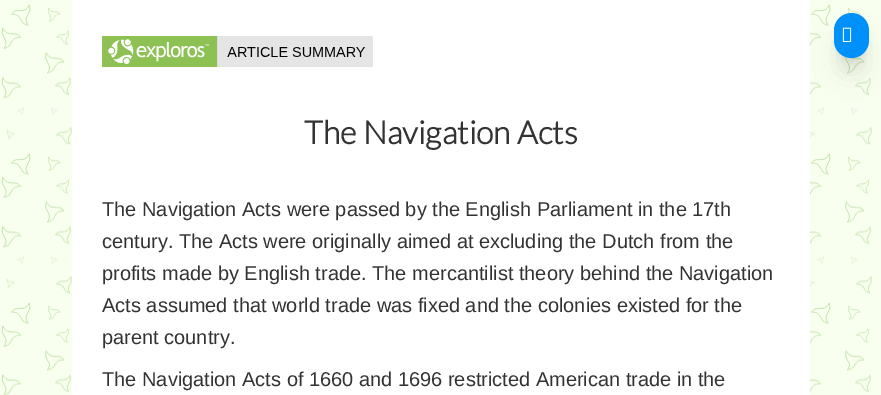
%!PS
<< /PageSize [881 395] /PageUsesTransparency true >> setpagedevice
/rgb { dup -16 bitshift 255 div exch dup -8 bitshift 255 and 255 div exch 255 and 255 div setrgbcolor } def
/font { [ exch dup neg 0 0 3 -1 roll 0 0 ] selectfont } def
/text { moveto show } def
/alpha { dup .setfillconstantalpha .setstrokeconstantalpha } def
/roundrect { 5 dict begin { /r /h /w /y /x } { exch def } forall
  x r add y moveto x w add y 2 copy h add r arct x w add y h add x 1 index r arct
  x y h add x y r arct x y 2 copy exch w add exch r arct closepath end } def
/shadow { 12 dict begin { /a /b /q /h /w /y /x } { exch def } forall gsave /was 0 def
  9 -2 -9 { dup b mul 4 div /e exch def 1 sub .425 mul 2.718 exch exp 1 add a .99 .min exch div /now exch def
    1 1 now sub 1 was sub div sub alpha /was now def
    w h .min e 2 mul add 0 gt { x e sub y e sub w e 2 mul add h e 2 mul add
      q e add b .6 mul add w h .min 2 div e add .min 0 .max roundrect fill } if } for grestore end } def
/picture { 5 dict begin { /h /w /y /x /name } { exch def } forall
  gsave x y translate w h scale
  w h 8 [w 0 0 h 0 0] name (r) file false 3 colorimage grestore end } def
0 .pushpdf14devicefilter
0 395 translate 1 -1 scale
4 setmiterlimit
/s1 { /Lato-Bold 32 font 16#333333 rgb } def
/s2 { /LiberationSans-Regular 20 font 16#333333 rgb } def
16#F9FFEF rgb
0 0 881 395 rectfill
(pic1.raw) 1 4 871 391 picture
16#000000 rgb
840 27 23 33 11.5 5 0.1 shadow
16#FFFFFF rgb
72 0 738 395 rectfill
16#000000 rgb
839 38 25 35 12.5 12.5 0.1 shadow
16#0090FA rgb
834 13 35 45 17.5 roundrect fill
(pic2.raw) 842 27 10 15 picture
(pic3.raw) 102 36 271 31 picture
s1
(The Navigation Acts) 304 144 text
s2
(The Navigation Acts were passed by the English Parliament in the 17th) 102 216 text
(century. The Acts were originally aimed at excluding the Dutch from the) 102 248 text
(profits made by English trade. The mercantilist theory behind the Navigation) 102 280 text
(Acts assumed that world trade was fixed and the colonies existed for the) 102 312 text
(parent country.) 102 344 text
(The Navigation Acts of 1660 and 1696 restricted American trade in the) 102 386 text
.poppdf14devicefilter showpage
